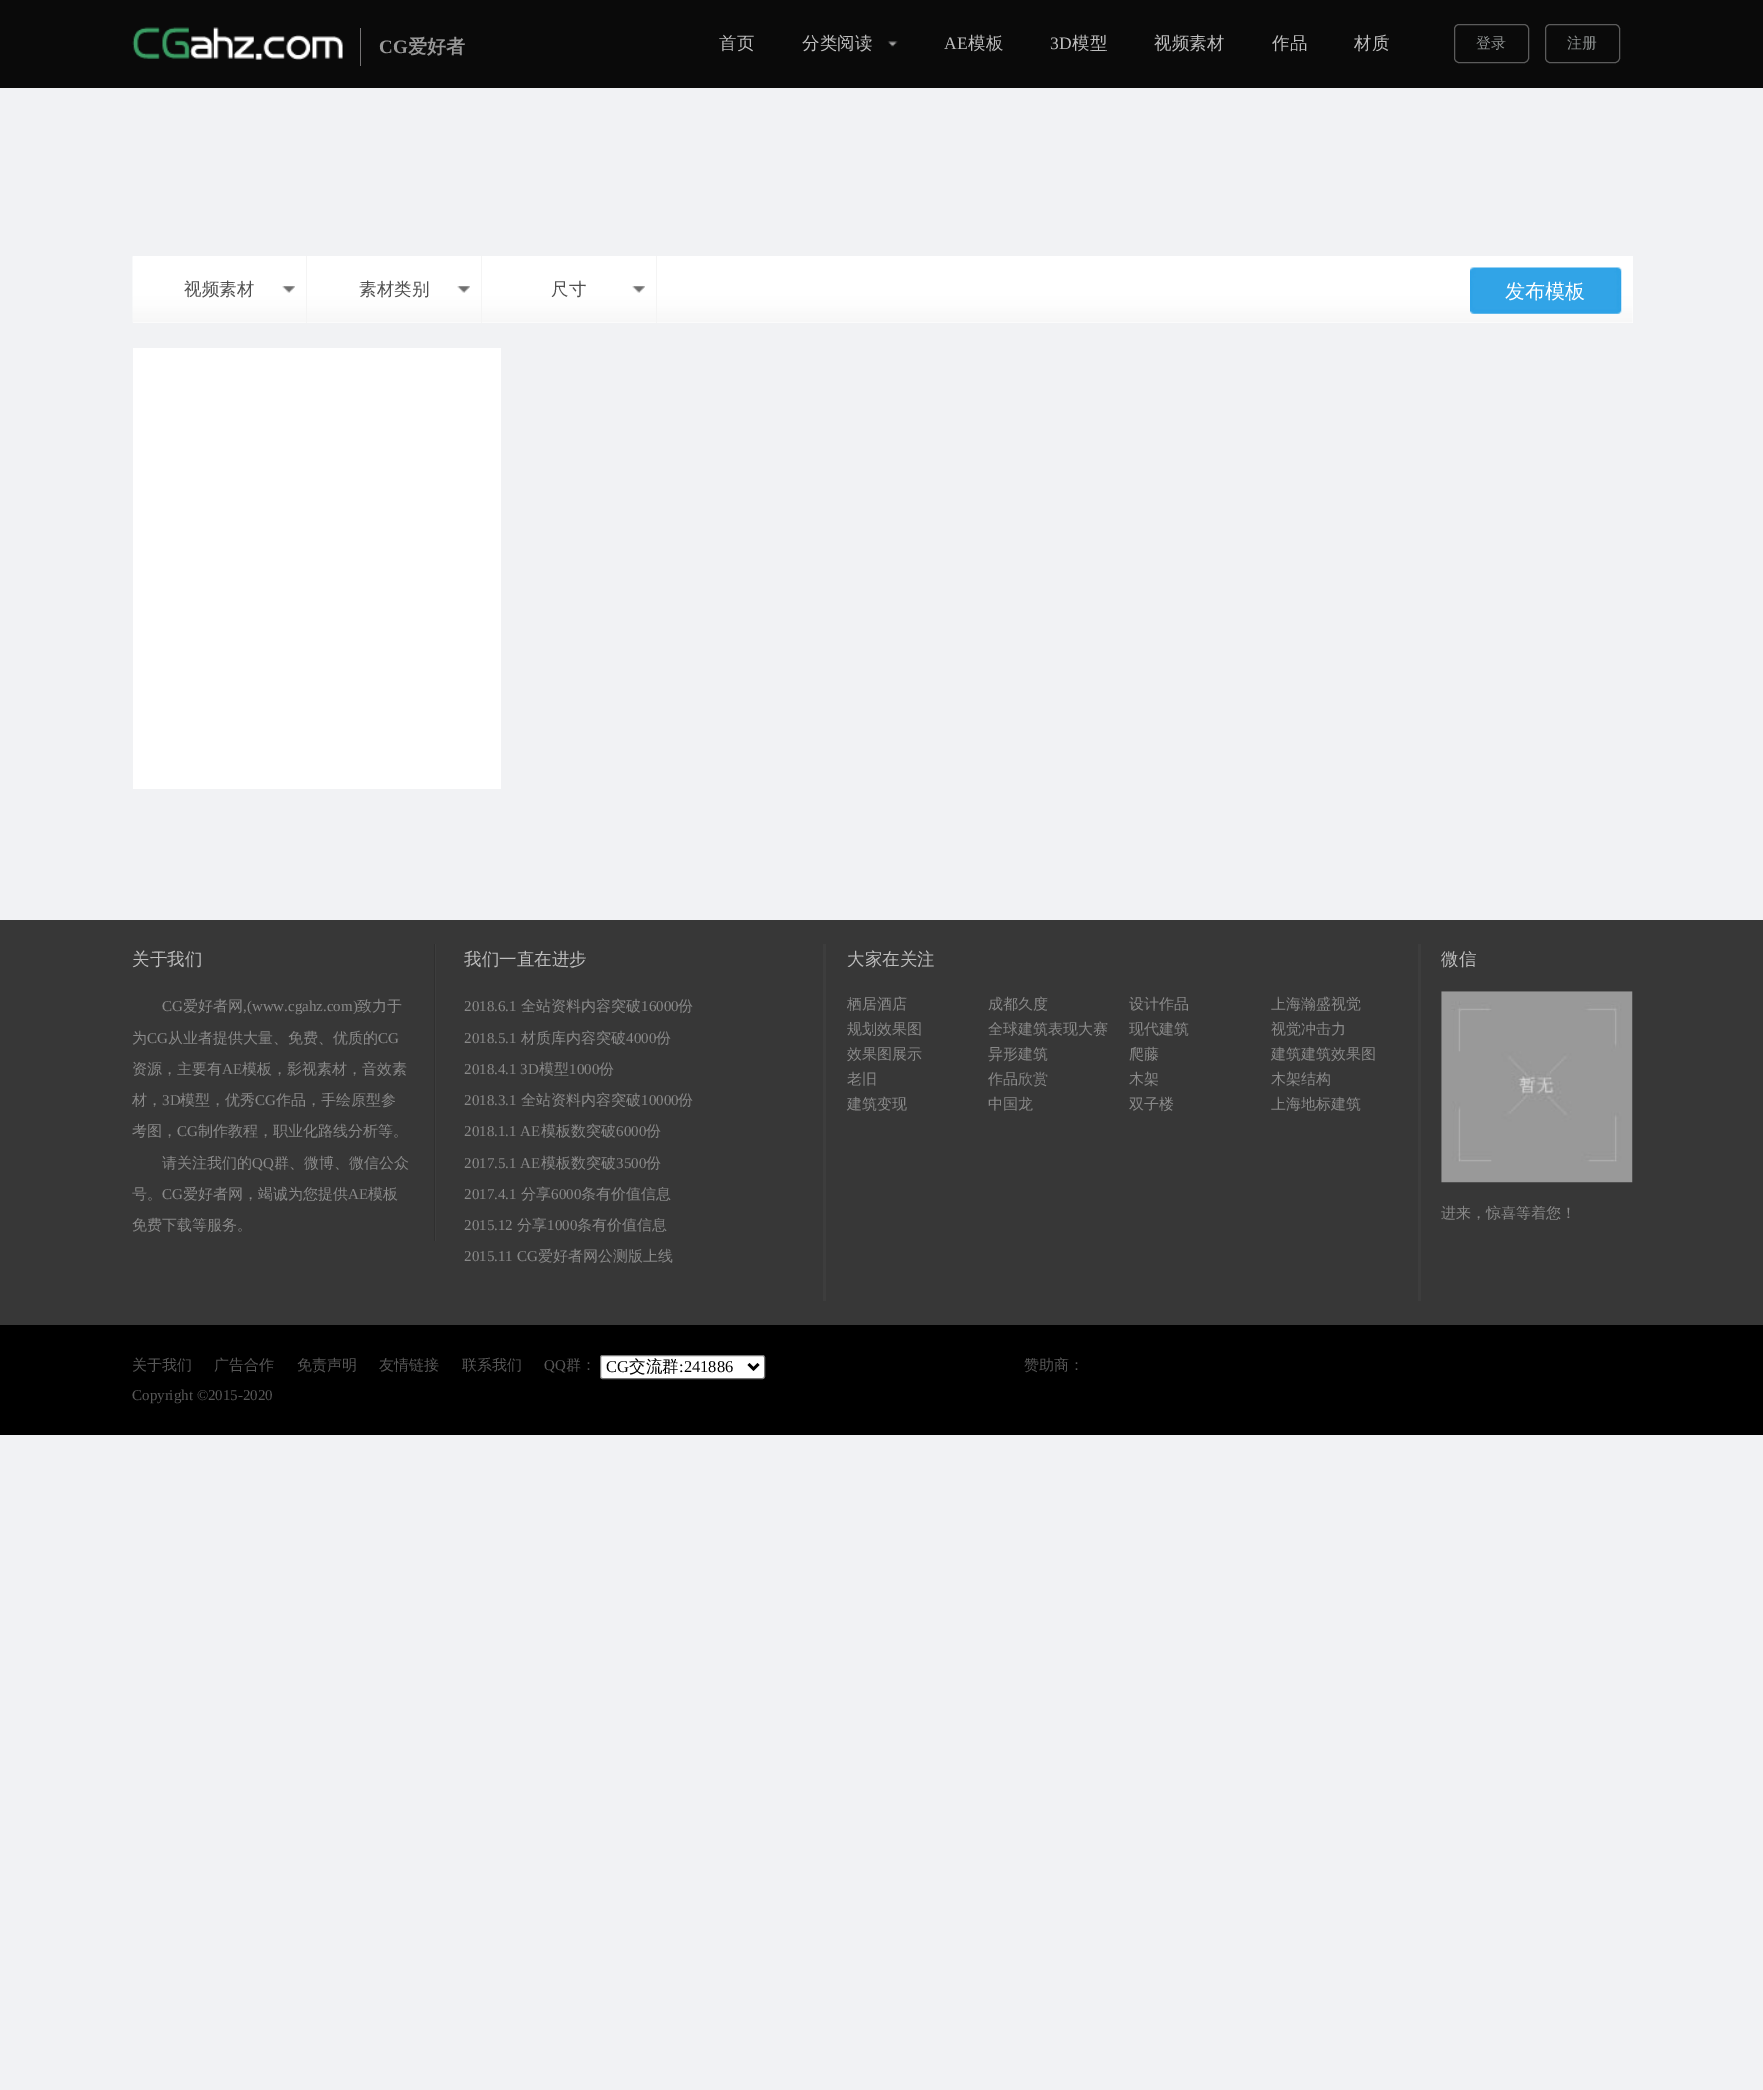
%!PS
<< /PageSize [1763 2090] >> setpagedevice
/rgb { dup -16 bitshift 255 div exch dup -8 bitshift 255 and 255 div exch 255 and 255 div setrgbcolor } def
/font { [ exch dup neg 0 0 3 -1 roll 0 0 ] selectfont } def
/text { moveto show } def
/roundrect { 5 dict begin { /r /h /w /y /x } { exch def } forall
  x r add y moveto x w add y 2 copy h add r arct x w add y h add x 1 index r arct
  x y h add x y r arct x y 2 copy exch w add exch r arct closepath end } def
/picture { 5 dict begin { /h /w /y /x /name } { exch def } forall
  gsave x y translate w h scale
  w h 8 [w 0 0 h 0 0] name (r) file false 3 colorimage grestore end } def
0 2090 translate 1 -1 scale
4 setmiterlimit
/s1 { /LiberationSerif-Bold 19 font 16#979797 rgb } def
/s2 { /WenQuanYiZenHei-Bold 19 font 16#979797 rgb } def
/s3 { /WenQuanYiZenHei-Medium 17.5 font 16#BEBEBE rgb } def
/s4 { /LiberationSerif-Regular 17.5 font 16#BEBEBE rgb } def
/s5 { /WenQuanYiZenHei-Medium 15 font 16#8E9291 rgb } def
/s6 { /WenQuanYiZenHei-Medium 17.5 font 16#4F4F4F rgb } def
/s7 { /WenQuanYiZenHei-Medium 20 font 16#FFFFFF rgb } def
/s8 { /LiberationSerif-Regular 15 font 16#898989 rgb } def
/s9 { /WenQuanYiZenHei-Medium 15 font 16#898989 rgb } def
/s10 { /WenQuanYiZenHei-Medium 15 font 16#575757 rgb } def
/s11 { /LiberationSerif-Regular 15 font 16#575757 rgb } def
/s12 { /LiberationSerif-Regular 16.5 font 16#000000 rgb } def
/s13 { /WenQuanYiZenHei-Medium 16.5 font 16#000000 rgb } def
16#F1F2F4 rgb
0 0 1763 2090 rectfill
16#0A0A0A rgb
0 0 1763 88 rectfill
(pic1.raw) 132 27 211 33 picture
16#757374 rgb
360 28 1 38 rectfill
s1
(CG) 379 53 text
s2
(爱好者) 408 53 text
s3
(首页) 719 49 text
(pic2.raw) 887 41 11 6 picture
(分类阅读) 802 49 text
s4
(AE) 944 49 text
s3
(模板) 968 49 text
s4
(3D) 1050 49 text
s3
(模型) 1072 49 text
(视频素材) 1154 49 text
(作品) 1272 49 text
(材质) 1354 49 text
16#5B5B5B rgb
1454.5 24.5 74 38 4.5 roundrect stroke
s5
(登录) 1476 48 text
16#5B5B5B rgb
1545.5 24.5 74 38 4.5 roundrect stroke
s5
(注册) 1567 48 text
16#FFFFFF rgb
133 256 1500 67 rectfill
(pic3.raw) 132 256 1501 67 picture
(pic4.raw) 282 286 13 7 picture
16#F4F4F4 rgb
306 256 1 67 rectfill
s6
(视频素材) 184 295 text
(pic5.raw) 457 286 13 7 picture
16#F4F4F4 rgb
481 256 1 67 rectfill
s6
(素材类别) 359 295 text
(pic5.raw) 632 286 13 7 picture
16#F4F4F4 rgb
656 256 1 67 rectfill
s6
(尺寸) 551 295 text
(pic6.raw) 1470 267 152 47 picture
s7
(发布模板) 1505 298 text
133 348 368 441 rectfill
16#373737 rgb
0 920 1763 405 rectfill
(pic7.raw) 434 944 2 297 picture
s3
(关于我们) 132 965 text
s8
(CG) 162 1011 text
s9
(爱好者网) 183 1011 text
s8
(,\(www.cgahz.com\)) 243 1011 text
s9
(致力于) 357 1011 text
(为) 132 1043 text
s8
(CG) 147 1043 text
s9
(从业者提供大量、免费、优质的) 168 1043 text
s8
(CG) 378 1043 text
s9
(资源，主要有) 132 1074 text
s8
(AE) 222 1074 text
s9
(模板，影视素材，音效素) 242 1074 text
(材，) 132 1105 text
s8
(3D) 162 1105 text
s9
(模型，优秀) 180 1105 text
s8
(CG) 255 1105 text
s9
(作品，手绘原型参) 276 1105 text
(考图，) 132 1136 text
s8
(CG) 177 1136 text
s9
(制作教程，职业化路线分析等。) 198 1136 text
(请关注我们的) 162 1168 text
s8
(QQ) 252 1168 text
s9
(群、微博、微信公众) 274 1168 text
(号。) 132 1199 text
s8
(CG) 162 1199 text
s9
(爱好者网，竭诚为您提供) 183 1199 text
s8
(AE) 348 1199 text
s9
(模板) 368 1199 text
(免费下载等服务。) 132 1230 text
s3
(我们一直在进步) 464 965 text
s8
(2018.6.1) 464 1011 text
s9
(全站资料内容突破) 521 1011 text
s8
(16000) 641 1011 text
s9
(份) 678 1011 text
s8
(2018.5.1) 464 1043 text
s9
(材质库内容突破) 521 1043 text
s8
(4000) 626 1043 text
s9
(份) 656 1043 text
s8
(2018.4.1 3D) 464 1074 text
s9
(模型) 539 1074 text
s8
(1000) 569 1074 text
s9
(份) 599 1074 text
s8
(2018.3.1) 464 1105 text
s9
(全站资料内容突破) 521 1105 text
s8
(10000) 641 1105 text
s9
(份) 678 1105 text
s8
(2018.1.1 AE) 464 1136 text
s9
(模板数突破) 541 1136 text
s8
(6000) 616 1136 text
s9
(份) 646 1136 text
s8
(2017.5.1 AE) 464 1168 text
s9
(模板数突破) 541 1168 text
s8
(3500) 616 1168 text
s9
(份) 646 1168 text
s8
(2017.4.1) 464 1199 text
s9
(分享) 521 1199 text
s8
(6000) 551 1199 text
s9
(条有价值信息) 581 1199 text
s8
(2015.12) 464 1230 text
s9
(分享) 517 1230 text
s8
(1000) 547 1230 text
s9
(条有价值信息) 577 1230 text
s8
(2015.11 CG) 464 1261 text
s9
(爱好者网公测版上线) 538 1261 text
16#3D3D3D rgb
823 944 3 357 rectfill
s3
(大家在关注) 847 965 text
s9
(栖居酒店) 847 1009 text
(成都久度) 988 1009 text
(设计作品) 1129 1009 text
(上海瀚盛视觉) 1271 1009 text
(规划效果图) 847 1034 text
(全球建筑表现大赛) 988 1034 text
(现代建筑) 1129 1034 text
(视觉冲击力) 1271 1034 text
(效果图展示) 847 1059 text
(异形建筑) 988 1059 text
(爬藤) 1129 1059 text
(建筑建筑效果图) 1271 1059 text
(老旧) 847 1084 text
(作品欣赏) 988 1084 text
(木架) 1129 1084 text
(木架结构) 1271 1084 text
(建筑变现) 847 1109 text
(中国龙) 988 1109 text
(双子楼) 1129 1109 text
(上海地标建筑) 1271 1109 text
16#3D3D3D rgb
1418 944 3 357 rectfill
s3
(微信) 1441 965 text
(pic8.raw) 1441 991 192 192 picture
s9
(进来，惊喜等着您！) 1441 1218 text
16#000000 rgb
0 1325 1763 110 rectfill
s10
(关于我们) 132 1370 text
(广告合作) 214 1370 text
(免责声明) 297 1370 text
(友情链接) 379 1370 text
(联系我们) 462 1370 text
s11
(QQ) 544 1370 text
s10
(群：) 566 1370 text
16#FFFFFF rgb
600.5 1355.5 164 23 2 roundrect gsave fill grestore
16#767676 rgb
stroke
16#000000 rgb
2.5 setlinewidth
748.5 1364 moveto 753.5 1369 lineto 758.5 1364 lineto stroke
s12
(CG) 606 1372 text
s13
(交流群) 629 1372 text
s12
(:241886) 679 1372 text
s10
(赞助商：) 1024 1370 text
s11
(Copyright ©2015-2020) 132 1400 text
showpage
